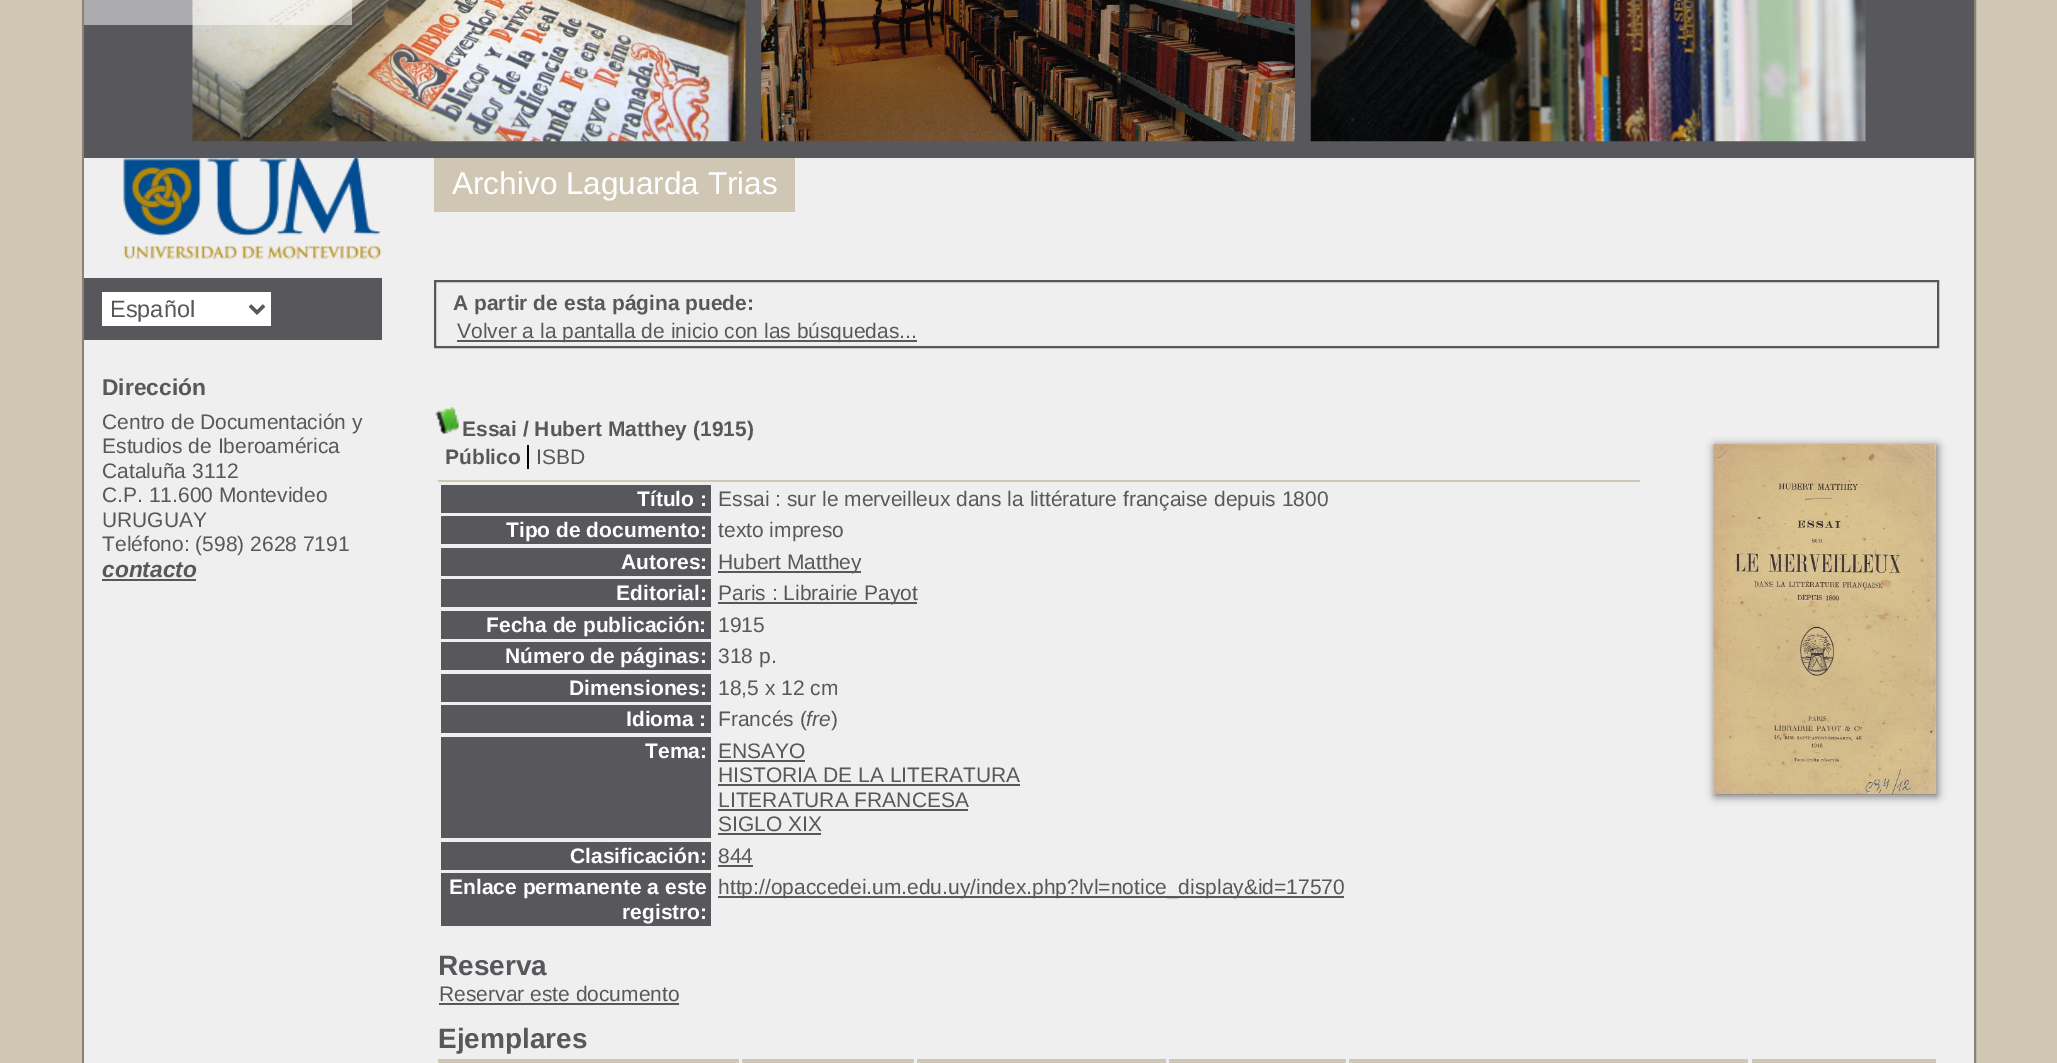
%!PS
<< /PageSize [2057 1063] /PageUsesTransparency true >> setpagedevice
/rgb { dup -16 bitshift 255 div exch dup -8 bitshift 255 and 255 div exch 255 and 255 div setrgbcolor } def
/font { [ exch dup neg 0 0 3 -1 roll 0 0 ] selectfont } def
/text { moveto show } def
/alpha { dup .setfillconstantalpha .setstrokeconstantalpha } def
/roundrect { 5 dict begin { /r /h /w /y /x } { exch def } forall
  x r add y moveto x w add y 2 copy h add r arct x w add y h add x 1 index r arct
  x y h add x y r arct x y 2 copy exch w add exch r arct closepath end } def
/shadow { 12 dict begin { /a /b /q /h /w /y /x } { exch def } forall gsave /was 0 def
  9 -2 -9 { dup b mul 4 div /e exch def 1 sub .425 mul 2.718 exch exp 1 add a .99 .min exch div /now exch def
    1 1 now sub 1 was sub div sub alpha /was now def
    w h .min e 2 mul add 0 gt { x e sub y e sub w e 2 mul add h e 2 mul add
      q e add b .6 mul add w h .min 2 div e add .min 0 .max roundrect fill } if } for grestore end } def
/picture { 5 dict begin { /h /w /y /x /name } { exch def } forall
  gsave x y translate w h scale
  w h 8 [w 0 0 h 0 0] name (r) file false 3 colorimage grestore end } def
0 .pushpdf14devicefilter
0 1063 translate 1 -1 scale
4 setmiterlimit
/s1 { /LiberationSans-Regular 31.5 font 16#FFFFFF rgb } def
/s2 { /LiberationSans-Regular 23.5 font 16#58585C rgb } def
/s3 { /LiberationSans-Bold 22.75 font 16#58585C rgb } def
/s4 { /LiberationSans-Regular 21 font 16#58585C rgb } def
/s5 { /LiberationSans-BoldItalic 22.75 font 16#58585C rgb } def
/s6 { /LiberationSans-Bold 21 font 16#58585C rgb } def
/s7 { /LiberationSans-Bold 21 font 16#FFFFFF rgb } def
/s8 { /LiberationSans-Italic 21 font 16#58585C rgb } def
/s9 { /LiberationSans-Bold 28 font 16#58585C rgb } def
16#D0C6B4 rgb
0 0 2057 1063 rectfill
16#898377 rgb
2 setlinewidth
83 -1 1892 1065 rectstroke
16#EFEFEF rgb
84 158 1890 905 rectfill
16#58585C rgb
84 0 1890 158 rectfill
(pic1.raw) 192 0 554 142 picture
(pic2.raw) 761 0 534 142 picture
(pic3.raw) 1310 0 556 142 picture
16#D0C6B4 rgb
434 158 361 54 rectfill
s1
(Archivo Laguarda Trias) 452 194 text
(pic4.raw) 123 158 259 101 picture
16#58585C rgb
84 278 298 62 rectfill
16#FFFFFF rgb
102 292 169 34 rectfill
16#58585C rgb
3.5 setlinewidth
250 305.5 moveto 257 312.5 lineto 264 305.5 lineto stroke
s2
(Español) 110 317 text
s3
(Dirección) 102 395 text
s4
(Centro de Documentación y) 102 429 text
(Estudios de Iberoamérica) 102 453 text
(Cataluña 3112) 102 478 text
(C.P. 11.600 Montevideo) 102 502 text
(URUGUAY) 102 527 text
(Teléfono: \(598\) 2628 7191) 102 551 text
s5
(contacto) 102 577 text
102 579 94 2 rectfill
0.5 alpha
16#FFFFFF rgb
84 0 268 25 rectfill
1 alpha
16#58585C rgb
2 setlinewidth
435 281 1503 66 rectstroke
s6
(A partir de esta página puede:) 453 310 text
457 340 460 2 rectfill
s4
(Volver a la pantalla de inicio con las búsquedas...) 457 338 text
(pic5.raw) 435 407 24 27 picture
s6
(Essai / Hubert Matthey \(1915\)) 462 436 text
16#D0C6B4 rgb
438 480 1202 2 rectfill
16#000000 rgb
527 445 2 24 rectfill
s6
(Público) 445 464 text
s4
(ISBD) 536 464 text
441 485 270 28 rectfill
s7
(Título :) 637 506 text
s4
(Essai : sur le merveilleux dans la littérature française depuis 1800) 718 506 text
441 516 270 28 rectfill
s7
(Tipo de documento:) 506 537 text
s4
(texto impreso) 718 537 text
441 548 270 28 rectfill
s7
(Autores:) 621 569 text
16#58585C rgb
718 571 143 2 rectfill
s4
(Hubert Matthey) 718 569 text
441 579 270 28 rectfill
s7
(Editorial:) 616 600 text
16#58585C rgb
718 602 199 2 rectfill
s4
(Paris : Librairie Payot) 718 600 text
441 611 270 28 rectfill
s7
(Fecha de publicación:) 486 632 text
s4
(1915) 718 632 text
441 642 270 28 rectfill
s7
(Número de páginas:) 505 663 text
s4
(318 p.) 718 663 text
441 674 270 28 rectfill
s7
(Dimensiones:) 569 695 text
s4
(18,5 x 12 cm) 718 695 text
441 705 270 28 rectfill
s7
(Idioma :) 626 726 text
s4
(Francés \() 718 726 text
s8
(fre) 806 726 text
s4
(\)) 831 726 text
441 737 270 101 rectfill
s7
(Tema:) 645 758 text
s4
(ENSAYO) 718 758 text
718 760 87 2 rectfill
(HISTORIA DE LA LITERATURA) 718 782 text
718 784 302 2 rectfill
(LITERATURA FRANCESA) 718 807 text
718 809 250 2 rectfill
(SIGLO XIX) 718 831 text
718 833 103 2 rectfill
441 842 270 28 rectfill
s7
(Clasificación:) 570 863 text
s4
(844) 718 863 text
718 865 35 2 rectfill
441 873 270 53 rectfill
s7
(Enlace permanente a este) 449 894 text
(registro:) 622 919 text
16#58585C rgb
718 896 626 2 rectfill
s4
(http://opaccedei.um.edu.uy/index.php?lvl=notice_display&id=17570) 718 894 text
16#666666 rgb
1715 446 222 350 0 4.5 1 shadow
(pic6.raw) 1713 444 223 350 picture
s9
(Reserva) 438 975 text
s4
(Reservar este documento) 439 1001 text
439 1003 240 2 rectfill
s9
(Ejemplares) 438 1048 text
16#D0C6B4 rgb
438 1059 301 4 rectfill
742 1059 172 4 rectfill
917 1059 249 4 rectfill
1169 1059 177 4 rectfill
1349 1059 399 4 rectfill
1752 1059 184 4 rectfill
.poppdf14devicefilter showpage
